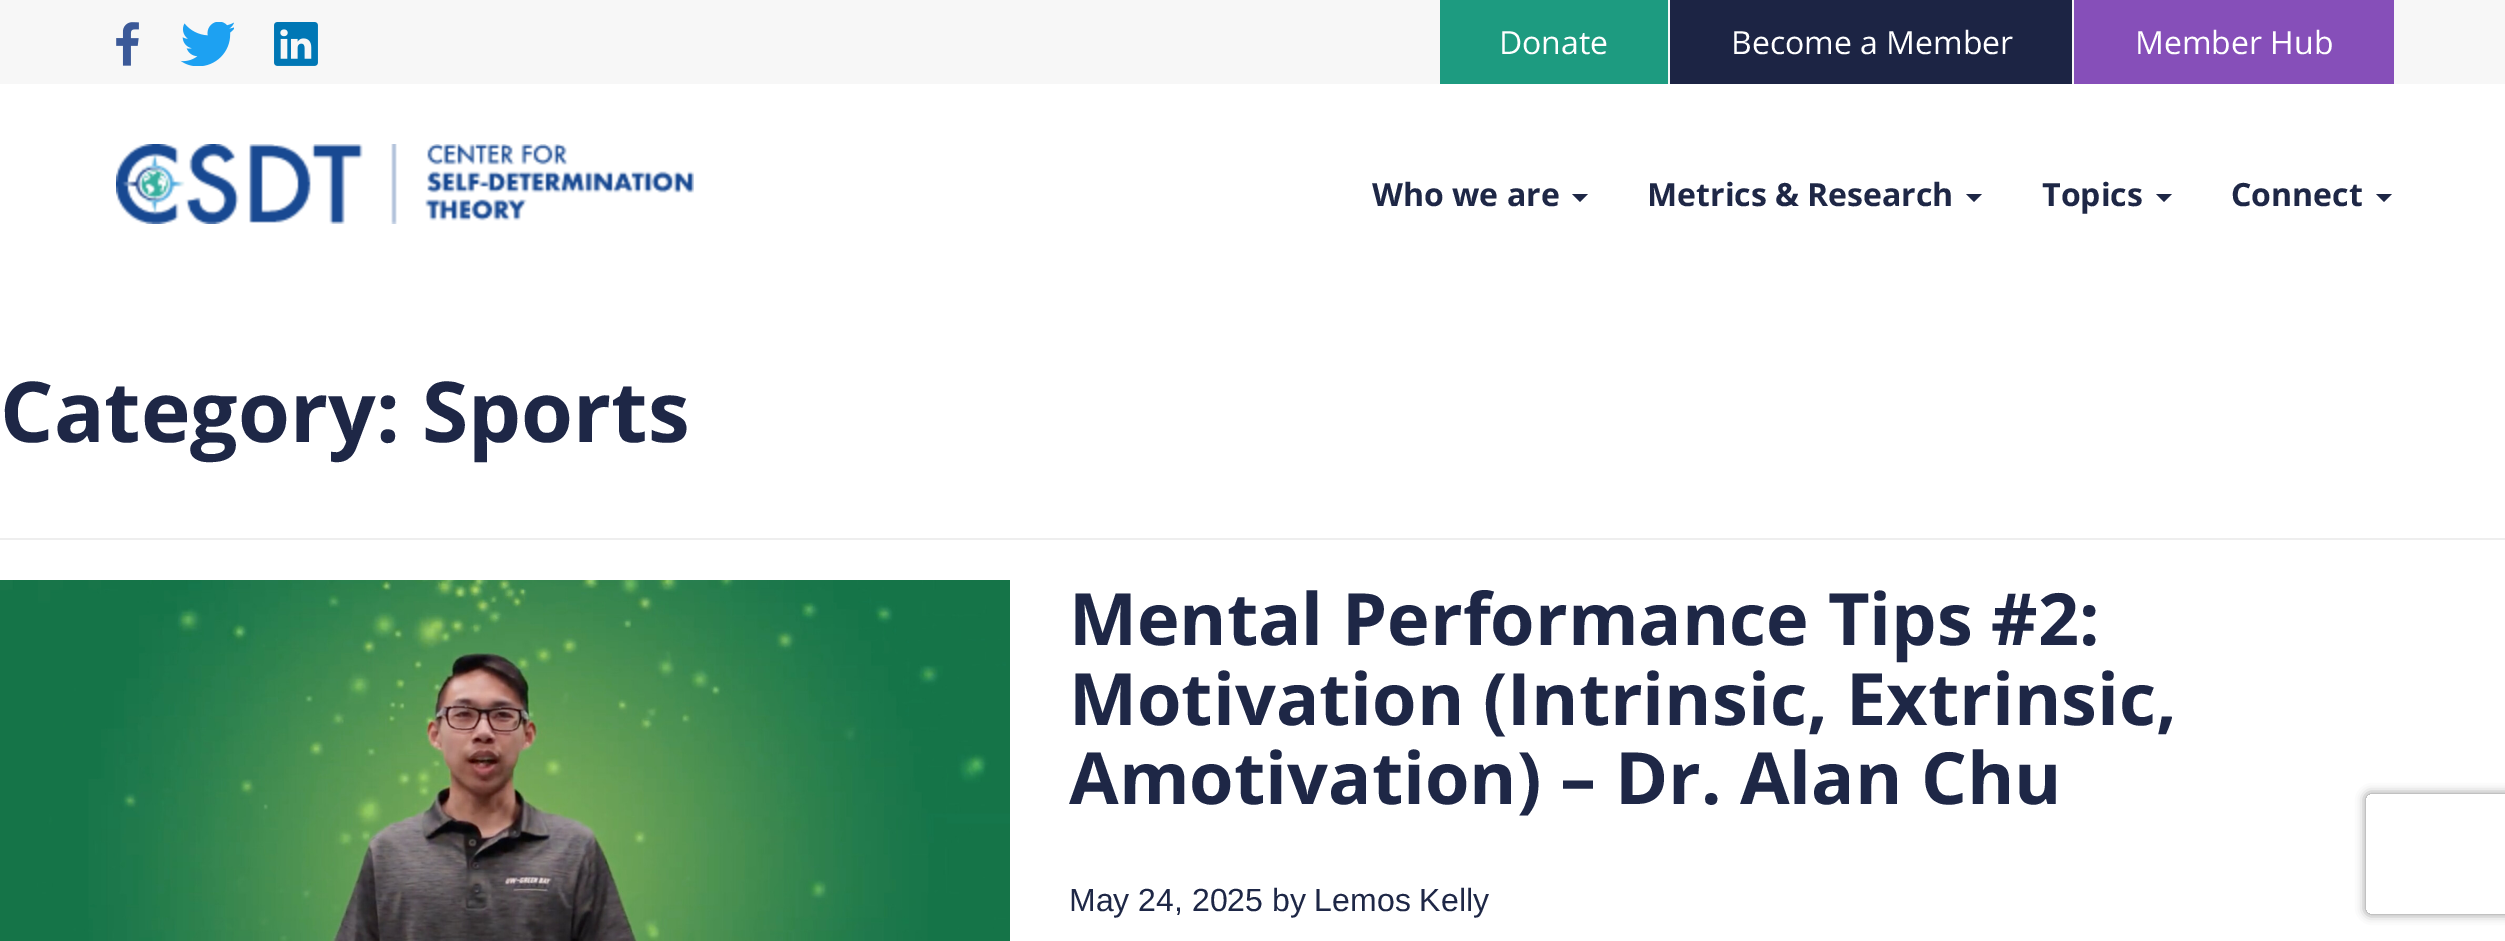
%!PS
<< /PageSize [2505 941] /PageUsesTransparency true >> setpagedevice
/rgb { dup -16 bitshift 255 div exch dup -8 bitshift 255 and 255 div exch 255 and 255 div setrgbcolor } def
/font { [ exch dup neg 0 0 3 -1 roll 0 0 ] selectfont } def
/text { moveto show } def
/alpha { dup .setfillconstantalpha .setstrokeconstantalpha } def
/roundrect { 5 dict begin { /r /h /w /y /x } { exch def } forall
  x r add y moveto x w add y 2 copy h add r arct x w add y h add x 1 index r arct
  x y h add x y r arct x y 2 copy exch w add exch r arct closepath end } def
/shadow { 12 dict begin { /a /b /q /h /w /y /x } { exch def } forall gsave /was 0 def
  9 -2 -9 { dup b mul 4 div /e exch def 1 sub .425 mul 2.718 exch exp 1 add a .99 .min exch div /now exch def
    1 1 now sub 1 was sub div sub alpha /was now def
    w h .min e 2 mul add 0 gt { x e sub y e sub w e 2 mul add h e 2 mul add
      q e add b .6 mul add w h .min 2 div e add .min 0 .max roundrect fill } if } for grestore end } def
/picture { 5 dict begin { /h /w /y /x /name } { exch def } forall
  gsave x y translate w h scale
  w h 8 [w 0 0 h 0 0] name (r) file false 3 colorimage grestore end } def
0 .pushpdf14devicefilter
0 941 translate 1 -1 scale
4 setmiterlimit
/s1 { /OpenSans-Regular 32 font 16#FFFFFF rgb } def
/s2 { /OpenSans-Bold 32 font 16#1E2746 rgb } def
/s3 { /OpenSans-Bold 84 font 16#1E2746 rgb } def
/s4 { /OpenSans-Bold 72 font 16#1E2746 rgb } def
/s5 { /LiberationSans-Regular 32 font 16#1E2746 rgb } def
16#FFFFFF rgb
0 0 2505 941 rectfill
16#F7F7F7 rgb
0 0 2505 84 rectfill
(pic1.raw) 116 22 23 44 picture
(pic2.raw) 180 22 54 44 picture
(pic3.raw) 274 22 44 44 picture
16#1D9B80 rgb
1440 0 228 84 rectfill
s1
(Donate) 1499 54 text
16#1C2444 rgb
1670 0 402 84 rectfill
s1
(Become a Member) 1731 54 text
16#864FB9 rgb
2074 0 320 84 rectfill
s1
(Member Hub) 2135 54 text
(pic4.raw) 116 144 578 80 picture
s2
(Who we are) 1372 206 text
1572 194 moveto 1588 194 lineto 1580 202 lineto closepath fill
(Metrics & Research) 1647 206 text
1966 194 moveto 1982 194 lineto 1974 202 lineto closepath fill
(Topics) 2042 206 text
2156 194 moveto 2172 194 lineto 2164 202 lineto closepath fill
(Connect) 2231 206 text
2376 194 moveto 2392 194 lineto 2384 202 lineto closepath fill
16#EEEEEE rgb
0 538 2505 2 rectfill
s3
(Category: Sports) 0 442 text
(pic5.raw) 0 580 1010 361 picture
s4
(Mental Performance Tips #2:) 1069 645 text
(Motivation \(Intrinsic, Extrinsic,) 1069 725 text
(Amotivation\) – Dr. Alan Chu) 1069 804 text
s5
(May 24, 2025 by Lemos Kelly) 1069 911 text
gsave
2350 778 moveto 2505 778 lineto 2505 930 lineto 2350 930 lineto closepath 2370 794 moveto 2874 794 lineto 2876 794 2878 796 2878 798 curveto 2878 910 lineto 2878 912 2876 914 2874 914 curveto 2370 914 lineto 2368 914 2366 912 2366 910 curveto 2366 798 lineto 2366 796 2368 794 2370 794 curveto closepath eoclip newpath
16#808080 rgb
2366 794 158 120 4 5 1 shadow
grestore
.poppdf14devicefilter showpage
